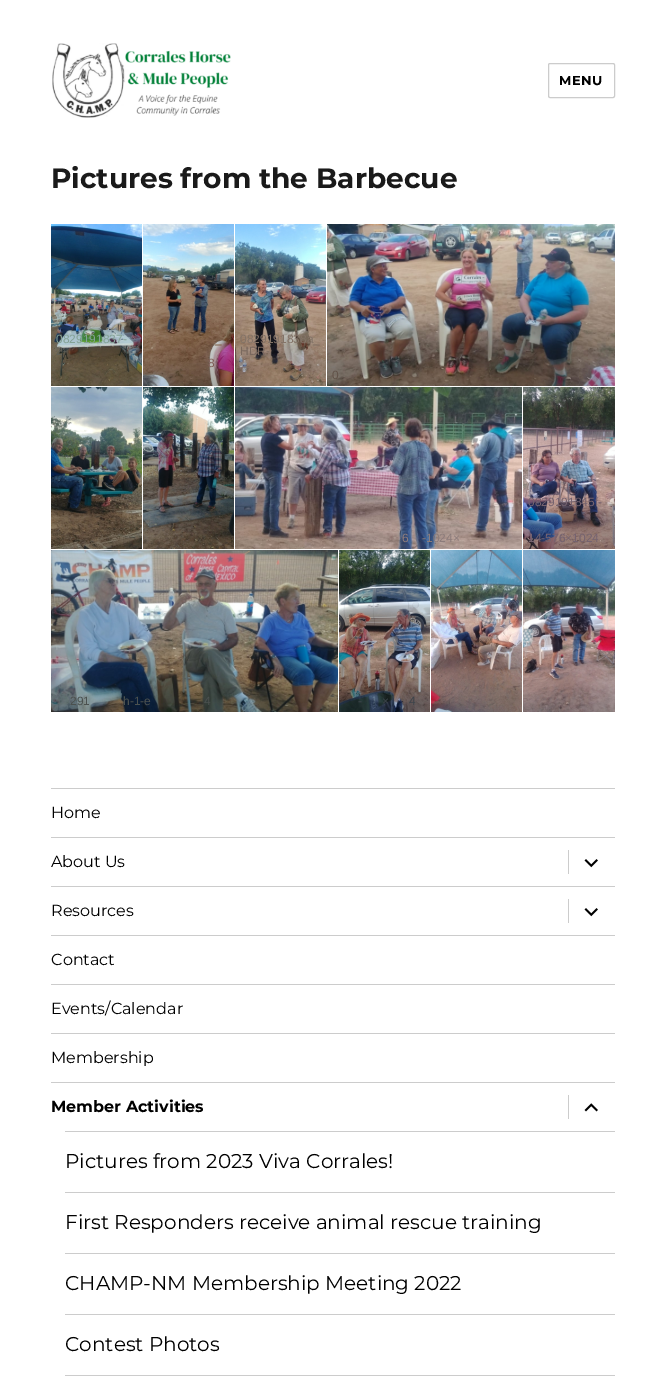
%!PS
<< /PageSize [666 1377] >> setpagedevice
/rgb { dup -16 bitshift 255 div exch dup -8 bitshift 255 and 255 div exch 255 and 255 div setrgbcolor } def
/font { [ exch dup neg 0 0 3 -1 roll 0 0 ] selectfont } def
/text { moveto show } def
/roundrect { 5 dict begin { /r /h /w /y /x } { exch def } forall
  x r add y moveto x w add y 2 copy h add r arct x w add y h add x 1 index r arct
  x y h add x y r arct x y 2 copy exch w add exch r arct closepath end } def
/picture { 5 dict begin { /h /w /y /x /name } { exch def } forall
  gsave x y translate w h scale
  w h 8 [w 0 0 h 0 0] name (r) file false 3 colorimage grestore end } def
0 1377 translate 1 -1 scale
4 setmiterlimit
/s1 { /Montserrat-Thin 28 font 16#1A1A1A rgb } def
/s2 { /LiberationSans-Regular 12 font 16#84A296 rgb } def
/s3 { /LiberationSans-Regular 12 font 16#626158 rgb } def
/s4 { /LiberationSans-Regular 12 font 16#82654E rgb } def
/s5 { /LiberationSans-Regular 12 font 16#7F5D56 rgb } def
/s6 { /LiberationSans-Regular 12 font 16#837367 rgb } def
/s7 { /LiberationSans-Regular 12 font 16#7A695F rgb } def
/s8 { /LiberationSans-Regular 12 font 16#615248 rgb } def
/s9 { /LiberationSans-Regular 12 font 16#8C7C7B rgb } def
/s10 { /LiberationSans-Regular 12 font 16#75636F rgb } def
/s11 { /LiberationSans-Regular 12 font 16#4B514F rgb } def
/s12 { /LiberationSans-Regular 12 font 16#3D444B rgb } def
/s13 { /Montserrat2-Thin 16 font 16#000000 rgb } def
/s14 { /Montserrat-Thin 16 font 16#000000 rgb } def
/s15 { /Montserrat2-Thin 20 font 16#000000 rgb } def
16#FFFFFF rgb
0 0 666 1377 rectfill
(pic1.raw) 52 43 179 75 picture
16#CCCCCC rgb
548.5 63.5 66 34 1.5 roundrect stroke
/Montserrat-Thin 13 font
16#000000 rgb
559 85 moveto 0.5 0 (MENU) ashow
s1
(Pictures from the Barbecue) 51 188 text
(pic2.raw) 51 224 91 162 picture
s2
(0829191837-) 56 343 text
s3
(2-) 56 355 text
(pic3.raw) 143 224 91 162 picture
s4
(_) 215 343 text
s5
(8) 208 367 text
(pic4.raw) 235 224 91 162 picture
s6
(0829191838a_) 240 343 text
s7
(HDR-) 240 355 text
(pic5.raw) 327 224 288 162 picture
s8
(0) 332 379 text
(pic6.raw) 51 387 91 162 picture
(pic7.raw) 143 387 91 162 picture
(pic8.raw) 235 387 287 162 picture
s9
(6) 402 542 text
(-1024×) 422 542 text
(pic9.raw) 523 387 92 162 picture
s10
(0829191845f-) 528 506 text
(14-576×1024) 528 542 text
(pic10.raw) 51 550 287 162 picture
s11
(291) 70 705 text
(h-1-e) 123 705 text
(4) 204 705 text
(pic11.raw) 339 550 91 162 picture
s12
(-) 358 705 text
(×) 382 705 text
(4) 409 705 text
(pic12.raw) 431 550 91 162 picture
(pic13.raw) 523 550 92 162 picture
16#CCCCCC rgb
51 788 564 1 rectfill
s13
(Home) 51 818 text
16#CCCCCC rgb
51 837 564 1 rectfill
s13
(About Us) 51 867 text
16#CCCCCC rgb
568 850 1 24 rectfill
(pic14.raw) 584 859 14 9 picture
51 886 564 1 rectfill
s13
(Resources) 51 916 text
16#CCCCCC rgb
568 899 1 24 rectfill
(pic14.raw) 584 908 14 9 picture
51 935 564 1 rectfill
s13
(Contact) 51 965 text
16#CCCCCC rgb
51 984 564 1 rectfill
s13
(Events/Calendar) 51 1014 text
16#CCCCCC rgb
51 1033 564 1 rectfill
s13
(Membership) 51 1063 text
16#CCCCCC rgb
51 1082 564 1 rectfill
s14
(Member Activities) 51 1112 text
16#CCCCCC rgb
568 1095 1 24 rectfill
(pic15.raw) 584 1103 14 9 picture
65 1131 550 1 rectfill
s15
(Pictures from 2023 Viva Corrales!) 65 1168 text
16#CCCCCC rgb
65 1192 550 1 rectfill
s15
(First Responders receive animal rescue training) 65 1229 text
16#CCCCCC rgb
65 1253 550 1 rectfill
s15
(CHAMP-NM Membership Meeting 2022) 65 1290 text
16#CCCCCC rgb
65 1314 550 1 rectfill
s15
(Contest Photos) 65 1351 text
16#CCCCCC rgb
65 1375 550 1 rectfill
showpage
